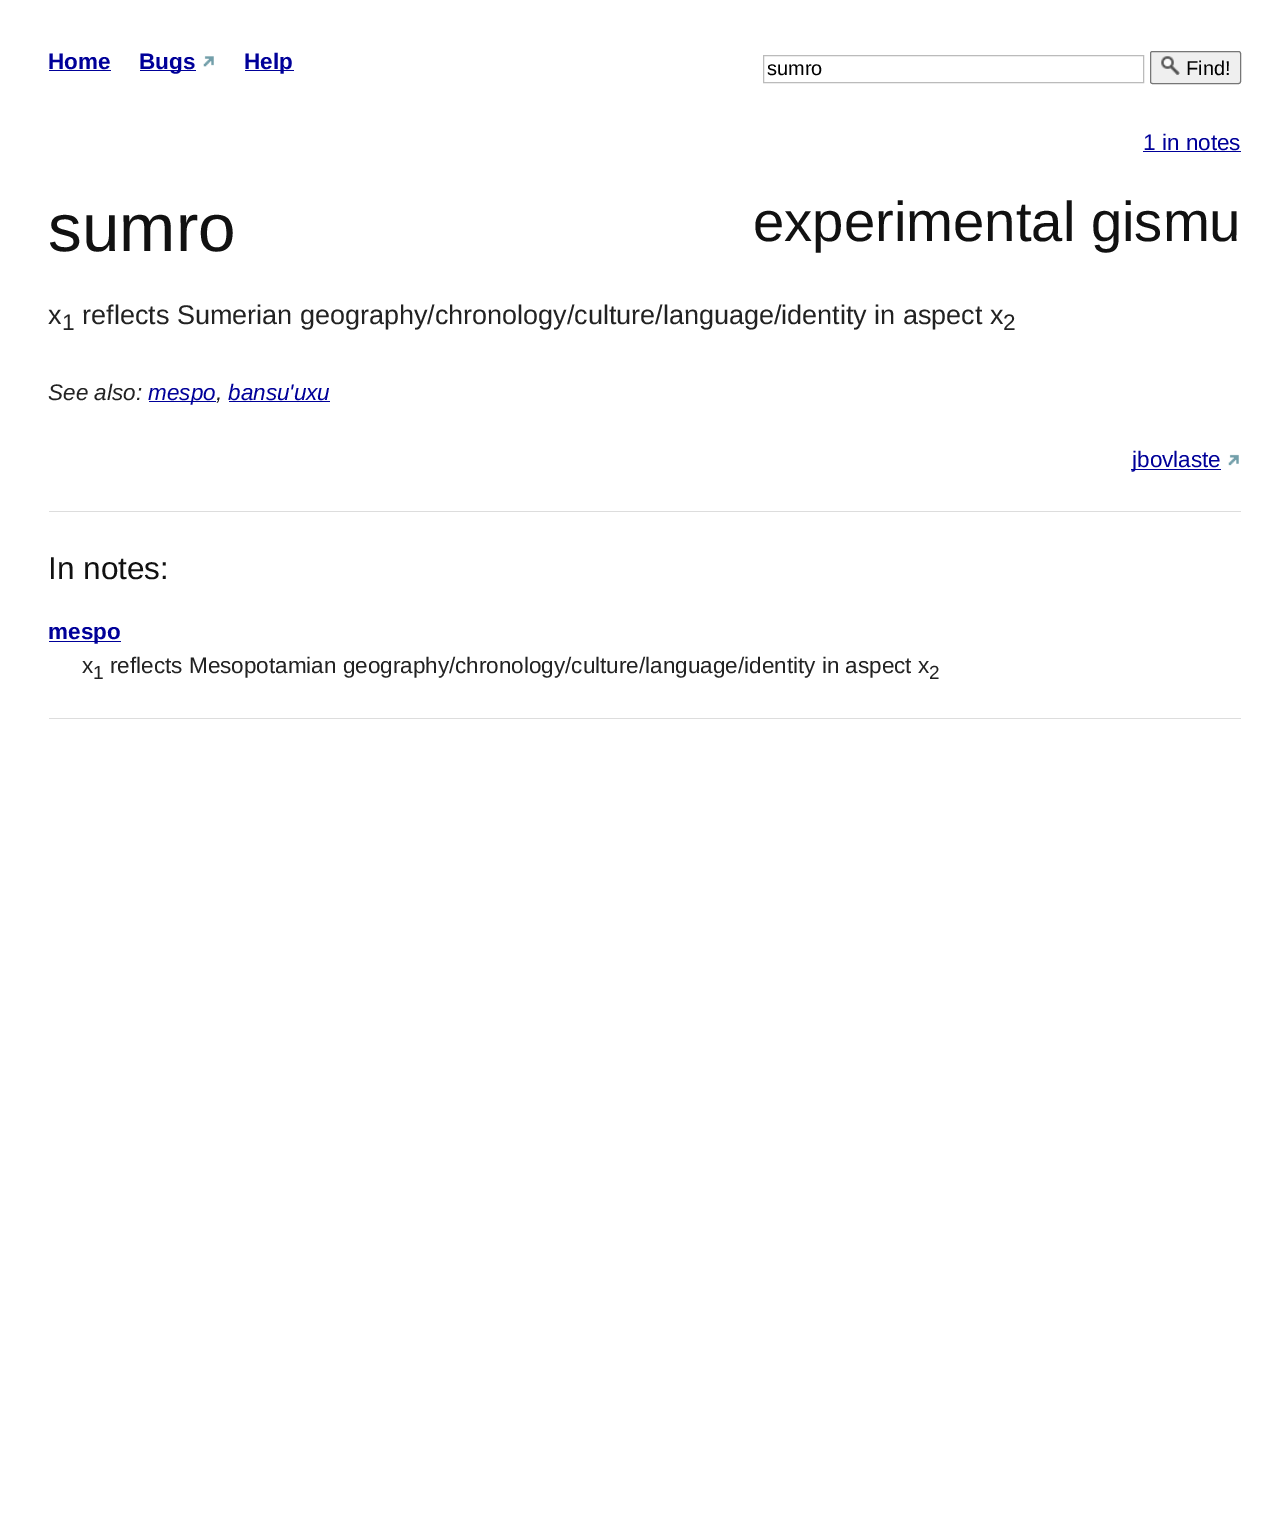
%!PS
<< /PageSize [1288 1540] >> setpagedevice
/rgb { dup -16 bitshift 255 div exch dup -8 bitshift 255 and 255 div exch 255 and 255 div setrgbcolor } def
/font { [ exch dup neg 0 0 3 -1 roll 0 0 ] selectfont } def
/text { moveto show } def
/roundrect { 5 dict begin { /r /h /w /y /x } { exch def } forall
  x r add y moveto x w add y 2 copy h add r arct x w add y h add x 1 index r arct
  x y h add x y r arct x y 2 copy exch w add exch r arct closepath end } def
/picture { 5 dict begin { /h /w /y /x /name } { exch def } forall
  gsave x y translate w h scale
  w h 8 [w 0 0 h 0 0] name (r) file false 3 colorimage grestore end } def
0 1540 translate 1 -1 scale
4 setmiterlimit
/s1 { /LiberationSans-Bold 22.5 font 16#000099 rgb } def
/s2 { /LiberationSans-Regular 20 font 16#000000 rgb } def
/s3 { /LiberationSans-Regular 22.5 font 16#000099 rgb } def
/s4 { /LiberationSans-Regular 67.5 font 16#111111 rgb } def
/s5 { /LiberationSans-Regular 56.25 font 16#111111 rgb } def
/s6 { /LiberationSans-Regular 27 font 16#222222 rgb } def
/s7 { /LiberationSans-Regular 22.5 font 16#222222 rgb } def
/s8 { /LiberationSans-Italic 22.5 font 16#222222 rgb } def
/s9 { /LiberationSans-Italic 22.5 font 16#000099 rgb } def
/s10 { /LiberationSans-Regular 31.5 font 16#111111 rgb } def
/s11 { /LiberationSans-Regular 19 font 16#222222 rgb } def
16#FFFFFF rgb
0 0 1288 1540 rectfill
s1
(Home) 48 69 text
49 70 62 1 rectfill
140 70 56 1 rectfill
(Bugs) 139 69 text
(pic1.raw) 203 56 11 11 picture
245 70 49 1 rectfill
(Help) 244 69 text
16#BBBBBB rgb
763.5 55.5 380 27 rectstroke
s2
(sumro) 767 75 text
16#EFEFEF rgb
1150.5 51.5 90 32 2 roundrect gsave fill grestore
16#767676 rgb
stroke
(pic2.raw) 1161 56 19 19 picture
s2
(Find!) 1186 75 text
s3
(1 in notes) 1143 150 text
1143 151 98 1 rectfill
s4
(sumro) 48 251 text
s5
(experimental gismu) 753 241 text
s6
(x) 48 324 text
s7
(1) 62 330 text
s6
(reflects Sumerian geography/chronology/culture/language/identity in aspect x) 82 324 text
s7
(2) 1003 330 text
s8
(See also:) 48 400 text
16#000099 rgb
149 401 67 1 rectfill
(mespo) 148 400 text
s8
(,) 216 400 text
s9
(bansu'uxu) 228 400 text
229 401 101 1 rectfill
1131 469 90 1 rectfill
s3
(jbovlaste) 1132 467 text
(pic3.raw) 1228 454 11 12 picture
16#DDDDDD rgb
49 511 1192 1 rectfill
s10
(In notes:) 48 579 text
16#000099 rgb
49 641 72 1 rectfill
s1
(mespo) 48 639 text
s7
(x) 82 673 text
s11
(1) 93 679 text
s7
(reflects Mesopotamian geography/chronology/culture/language/identity in aspect x) 110 673 text
s11
(2) 929 679 text
16#DDDDDD rgb
49 718 1192 1 rectfill
showpage
